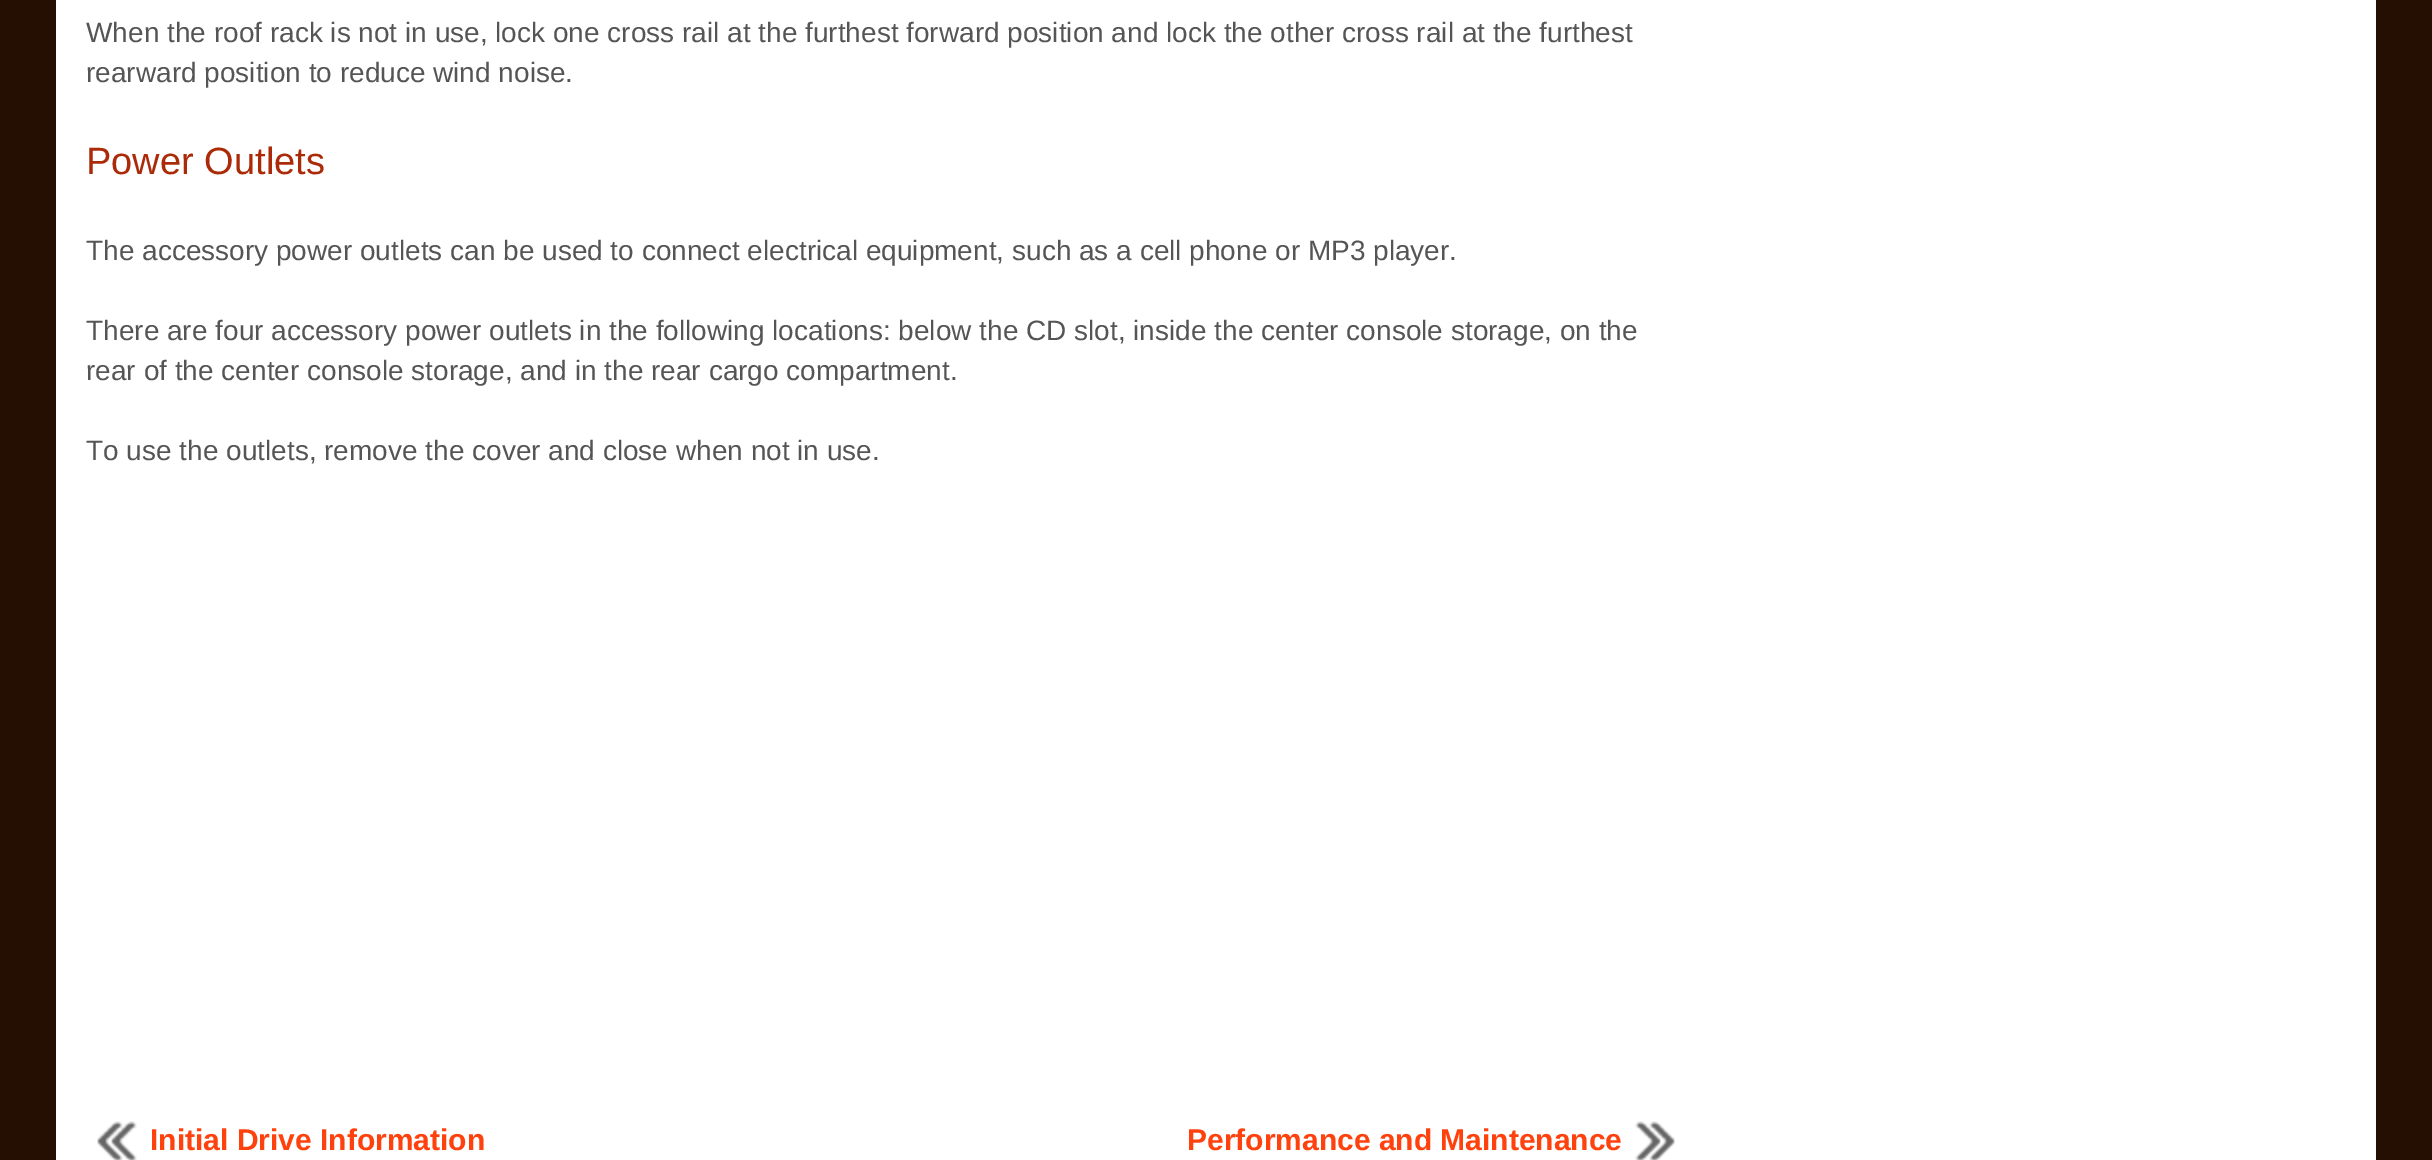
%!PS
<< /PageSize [2432 1160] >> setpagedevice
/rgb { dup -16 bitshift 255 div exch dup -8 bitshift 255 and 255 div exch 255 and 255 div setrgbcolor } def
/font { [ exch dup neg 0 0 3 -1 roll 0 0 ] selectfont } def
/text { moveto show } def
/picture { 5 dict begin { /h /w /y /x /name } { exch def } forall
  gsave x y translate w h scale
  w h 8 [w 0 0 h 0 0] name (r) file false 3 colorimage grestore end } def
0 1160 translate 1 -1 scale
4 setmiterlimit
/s1 { /LiberationSans-Regular 28 font 16#555555 rgb } def
/s2 { /LiberationSans-Regular 38 font 16#AB2B09 rgb } def
/s3 { /LiberationSans-Bold 30 font 16#FF410E rgb } def
16#240F02 rgb
0 0 2432 1160 rectfill
16#FFFFFF rgb
56 0 2320 1160 rectfill
s1
(When the roof rack is not in use, lock one cross rail at the furthest forward position and lock the other cross rail at the furthest) 86 42 text
(rearward position to reduce wind noise.) 86 82 text
s2
(Power Outlets) 86 174 text
s1
(The accessory power outlets can be used to connect electrical equipment, such as a cell phone or MP3 player.) 86 260 text
(There are four accessory power outlets in the following locations: below the CD slot, inside the center console storage, on the) 86 340 text
(rear of the center console storage, and in the rear cargo compartment.) 86 380 text
(To use the outlets, remove the cover and close when not in use.) 86 460 text
(pic1.raw) 97 1121 40 39 picture
s3
(Initial Drive Information) 150 1150 text
(Performance and Maintenance) 1187 1150 text
(pic2.raw) 1635 1121 40 39 picture
showpage
